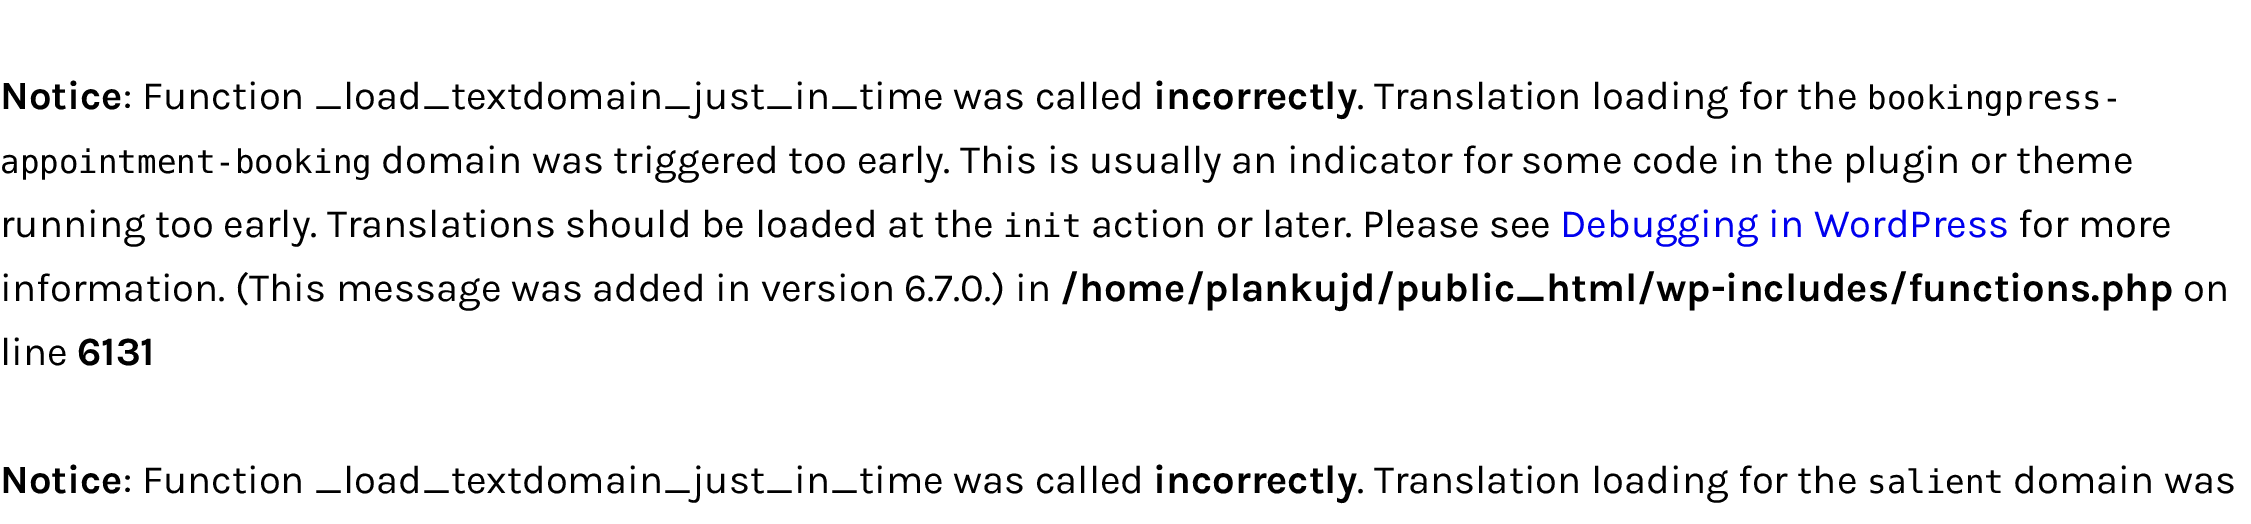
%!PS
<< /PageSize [2251 524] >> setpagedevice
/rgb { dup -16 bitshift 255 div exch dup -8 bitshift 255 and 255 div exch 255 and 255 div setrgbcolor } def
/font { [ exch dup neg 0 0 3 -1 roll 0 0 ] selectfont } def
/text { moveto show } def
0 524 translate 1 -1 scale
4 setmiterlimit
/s1 { /Karla-Bold 40 font 16#000000 rgb } def
/s2 { /Karla-Regular 40 font 16#000000 rgb } def
/s3 { /DejaVuSansMono-Regular 32.5 font 16#000000 rgb } def
/s4 { /Karla-Regular 40 font 16#0000EE rgb } def
16#FFFFFF rgb
0 0 2251 524 rectfill
s1
(Notice) 0 109 text
s2
(: Function _load_textdomain_just_in_time was called) 123 109 text
s1
(incorrectly) 1153 109 text
s2
(. Translation loading for the) 1357 109 text
s3
(bookingpress-) 1867 109 text
(appointment-booking) 0 173 text
s2
(domain was triggered too early. This is usually an indicator for some code in the plugin or theme) 381 173 text
(running too early. Translations should be loaded at the) 0 237 text
s3
(init) 1003 237 text
s2
(action or later. Please see) 1091 237 text
s4
(Debugging in WordPress) 1560 237 text
s2
(for more) 2018 237 text
(information. \(This message was added in version 6.7.0.\) in) 0 301 text
s1
(/home/plankujd/public_html/wp-includes/functions.php) 1060 301 text
s2
(on) 2183 301 text
(line) 0 365 text
s1
(6131) 77 365 text
(Notice) 0 493 text
s2
(: Function _load_textdomain_just_in_time was called) 123 493 text
s1
(incorrectly) 1153 493 text
s2
(. Translation loading for the) 1357 493 text
s3
(salient) 1867 493 text
s2
(domain was) 2013 493 text
showpage
